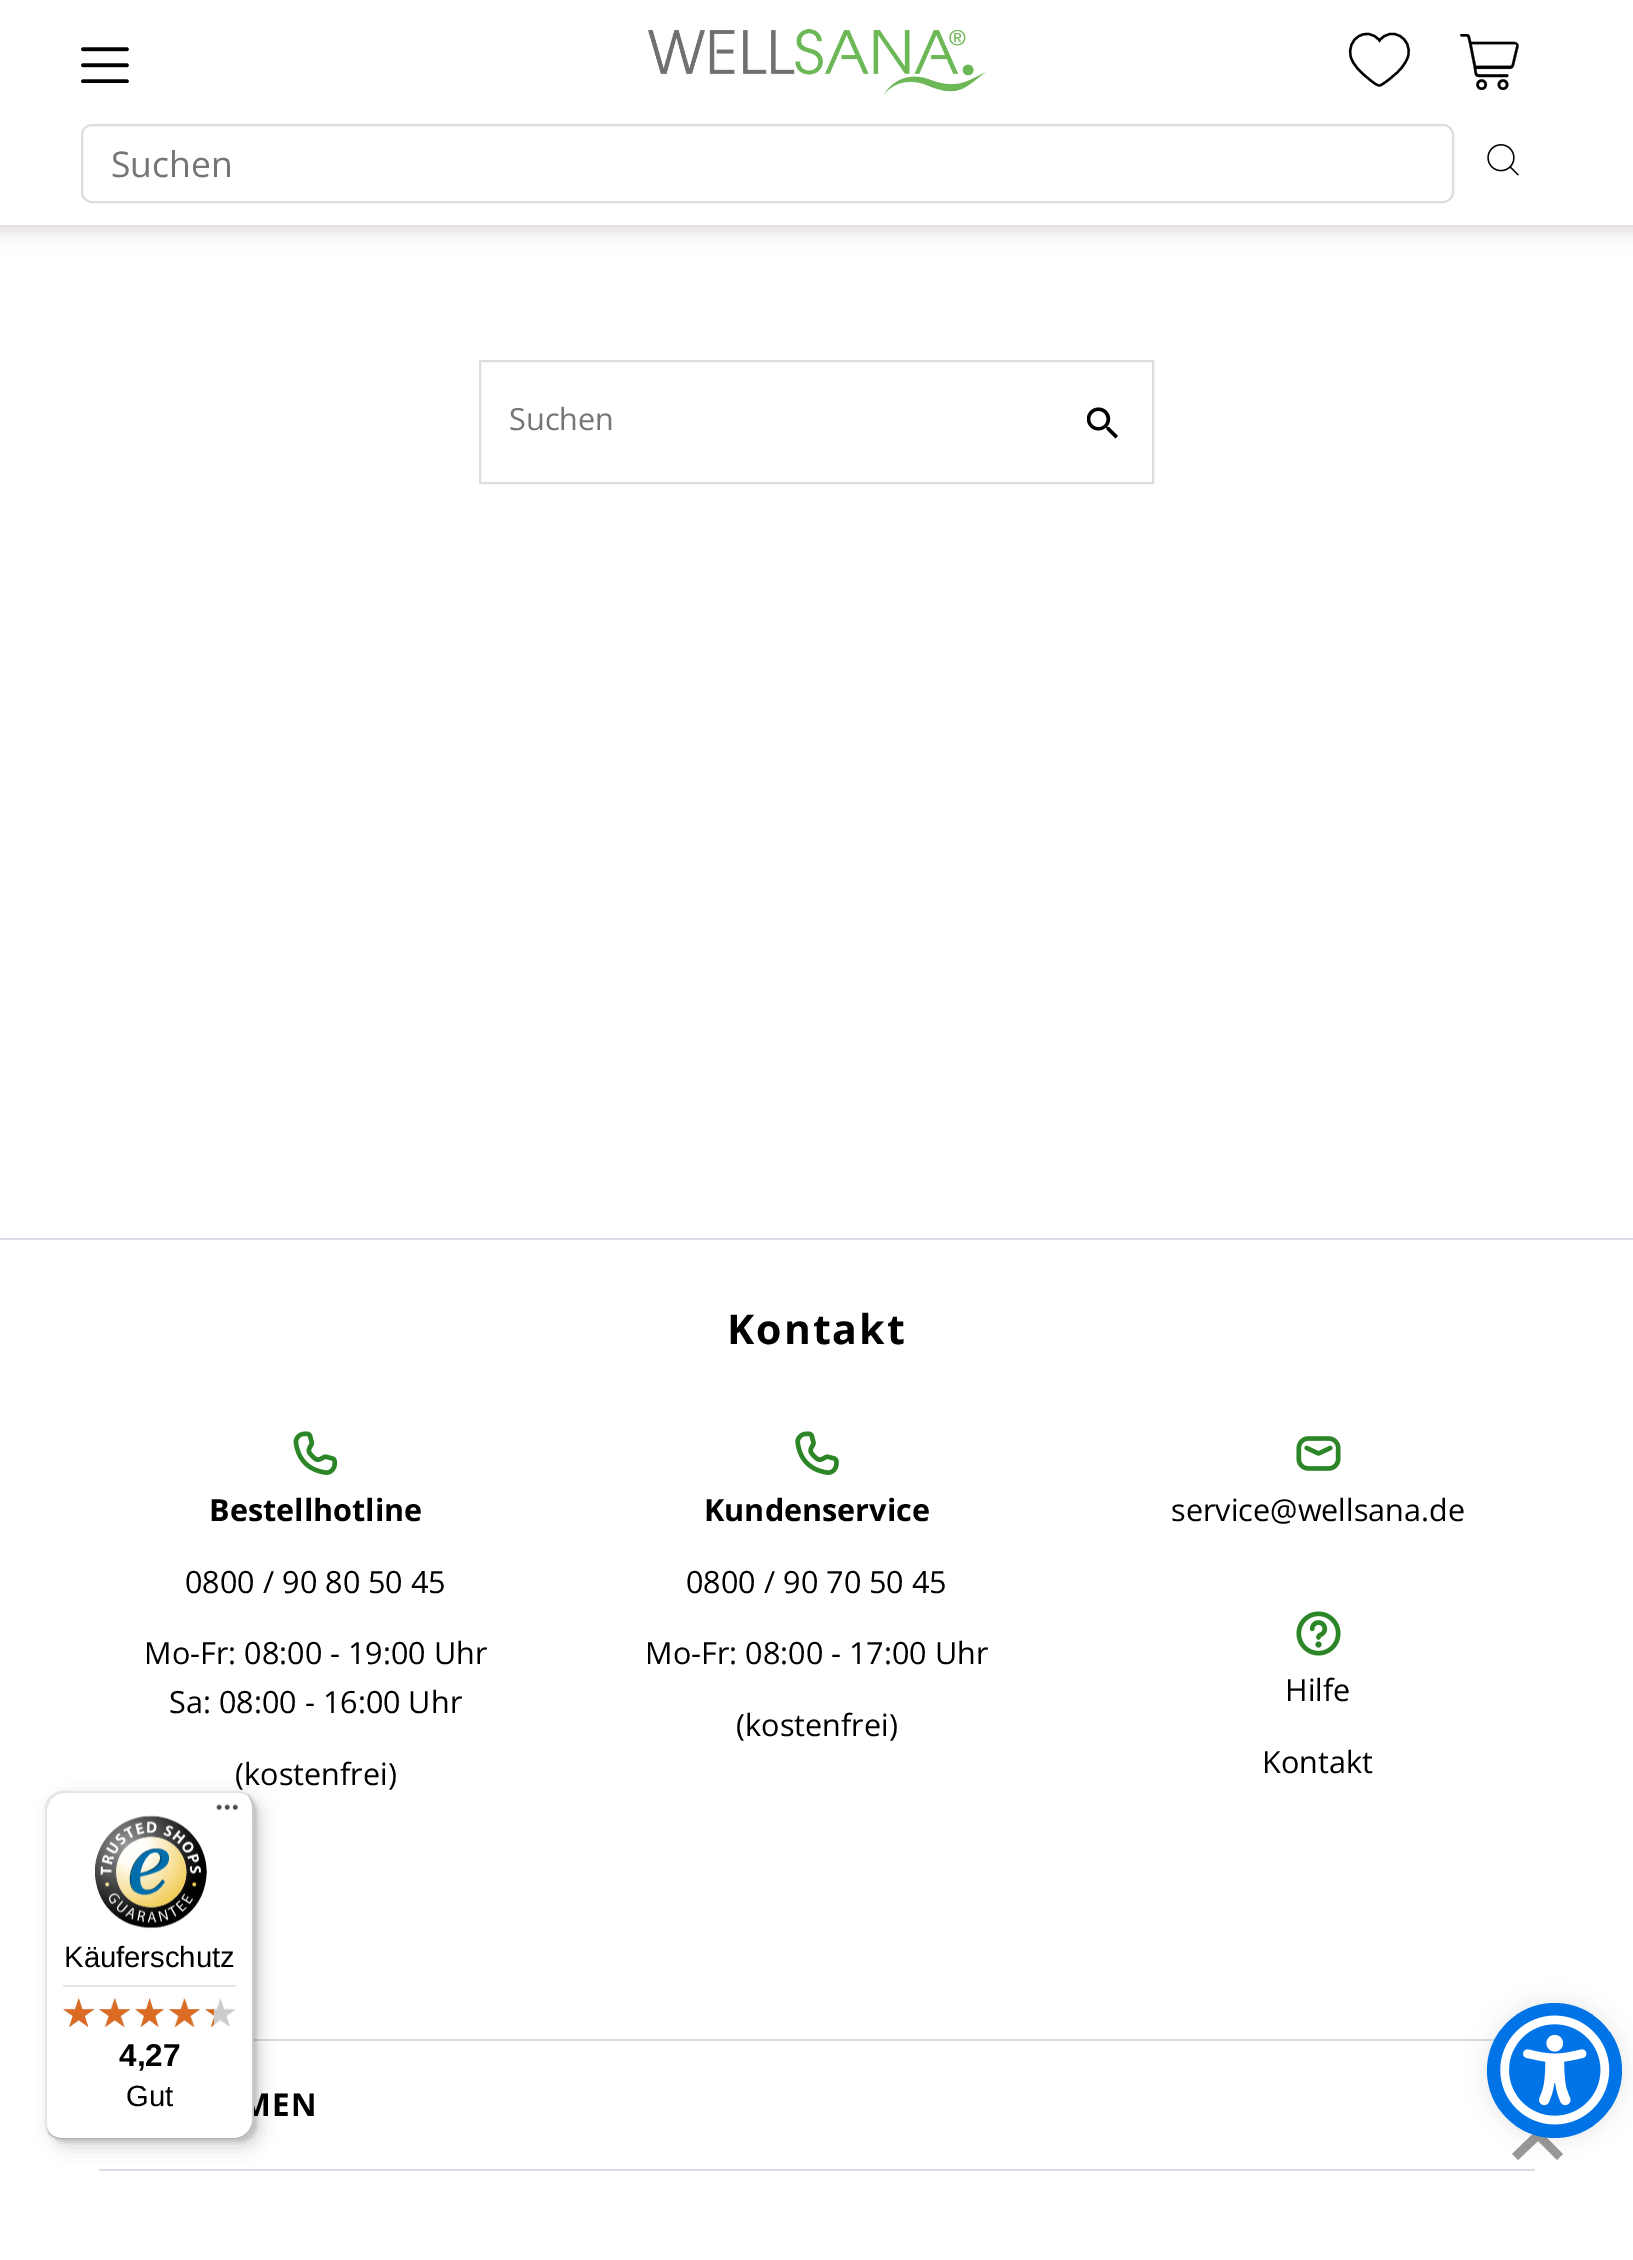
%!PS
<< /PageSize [1633 2260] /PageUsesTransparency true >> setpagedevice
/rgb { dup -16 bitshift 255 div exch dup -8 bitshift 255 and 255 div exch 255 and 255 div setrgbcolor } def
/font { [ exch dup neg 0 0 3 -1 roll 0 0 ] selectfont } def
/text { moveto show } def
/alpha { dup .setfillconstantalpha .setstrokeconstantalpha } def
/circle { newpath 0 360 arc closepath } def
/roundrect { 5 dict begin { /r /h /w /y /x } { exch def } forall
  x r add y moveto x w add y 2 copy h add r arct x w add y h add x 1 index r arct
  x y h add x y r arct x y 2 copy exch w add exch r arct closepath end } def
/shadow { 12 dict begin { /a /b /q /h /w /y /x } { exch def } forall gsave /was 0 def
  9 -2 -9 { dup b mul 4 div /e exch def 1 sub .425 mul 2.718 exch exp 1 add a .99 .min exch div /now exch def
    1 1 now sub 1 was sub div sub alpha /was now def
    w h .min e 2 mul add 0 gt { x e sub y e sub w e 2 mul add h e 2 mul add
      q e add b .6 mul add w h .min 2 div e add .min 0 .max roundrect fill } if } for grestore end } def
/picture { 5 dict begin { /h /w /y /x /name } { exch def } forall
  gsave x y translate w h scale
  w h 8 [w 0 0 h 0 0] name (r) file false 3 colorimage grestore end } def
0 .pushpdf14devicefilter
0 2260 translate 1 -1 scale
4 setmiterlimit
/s1 { /OpenSans-Regular 35.5 font 16#757575 rgb } def
/s2 { /OpenSans-Regular 30.6 font 16#757575 rgb } def
/s3 { /OpenSans-Bold 30.6 font 16#000000 rgb } def
/s4 { /OpenSans-Regular 30.6 font 16#000000 rgb } def
/s5 { /LiberationSans-Regular 29.25 font 16#000000 rgb } def
/s6 { /LiberationSans-Bold 31.5 font 16#000000 rgb } def
16#FFFFFF rgb
0 0 1633 2260 rectfill
16#5C2B36 rgb
-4 -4 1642 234 0 9 0.2 shadow
16#FFFFFF rgb
0 0 1633 225 rectfill
(pic1.raw) 81 47 48 36 picture
(pic2.raw) 648 29 338 66 picture
16#000000 rgb
2.3 setlinewidth
1379.5 85.5 moveto 1376 85.5 1369 79 1366.5 77 curveto 1360.5 72 1353.5 65.5 1351 57.5 curveto 1345.5 39 1367 25 1379.5 40.5 curveto 1391 25.5 1413 38 1408 56.5 curveto 1405.5 64.5 1399 71.5 1392.5 76.5 curveto 1391 78 1382.5 85 1379.5 85.5 curveto closepath stroke
(pic3.raw) 1460 34 59 56 picture
16#DDDDDD rgb
2 setlinewidth
82 125 1371 77 10 roundrect stroke
s1
(Suchen) 111 177 text
(pic4.raw) 1487 144 32 32 picture
16#DDDDDD rgb
480 361 673 122 rectstroke
s2
(Suchen) 509 430 text
(pic5.raw) 1087 407 31 32 picture
16#D9DAE3 rgb
0 1238 1633 2 rectfill
/OpenSans-Bold 41 font
16#000000 rgb
727 1344 moveto 2 0 (Kontakt) ashow
(pic6.raw) 293 1431 45 44 picture
s3
(Bestellhotline) 209 1521 text
s4
(0800 / 90 80 50 45) 185 1593 text
(Mo-Fr: 08:00 - 19:00 Uhr) 144 1664 text
(Sa: 08:00 - 16:00 Uhr) 169 1713 text
(\(kostenfrei\)) 235 1785 text
(pic7.raw) 795 1431 44 44 picture
s3
(Kundenservice) 704 1521 text
s4
(0800 / 90 70 50 45) 686 1593 text
(Mo-Fr: 08:00 - 17:00 Uhr) 645 1664 text
(\(kostenfrei\)) 736 1736 text
(pic8.raw) 1296 1436 45 35 picture
(service@wellsana.de) 1171 1521 text
(pic9.raw) 1296 1611 45 45 picture
(Hilfe) 1285 1701 text
(Kontakt) 1262 1773 text
16#D9DAE3 rgb
254 2039 1241 2 rectfill
99 2169 1436 2 rectfill
/OpenSans-Bold 31.5 font
16#000000 rgb
241 2116 moveto 1.5 0 (MEN) ashow
16#999999 rgb
1538 2129 moveto 1512 2154 lineto 1518 2160 lineto 1538 2141 lineto 1557 2160 lineto 1563 2154 lineto closepath fill
16#000000 rgb
52 1798 209 349 18 9 0.15 shadow
47 1793 210 349 18 2 0.15 shadow
16#FFFFFF rgb
45 1791 209 349 18 roundrect fill
0.1 alpha
16#000000 rgb
65 1793 moveto 238 1793 lineto 242 1793 246 1795 250 1797 curveto 246 1793 241 1791 236 1791 curveto 63 1791 lineto 53 1791 45 1799 45 1809 curveto 45 2122 lineto 45 2127 47 2132 51 2136 curveto 49 2132 47 2128 47 2124 curveto 47 1811 lineto 47 1801 55 1793 65 1793 curveto closepath fill
0.2 alpha
48 2133 moveto 52 2137 57 2140 63 2140 curveto 236 2140 lineto 246 2140 254 2132 254 2122 curveto 254 1809 lineto 254 1804 252 1799 248 1795 curveto 250 1799 252 1803 252 1807 curveto 252 2120 lineto 252 2129 244 2138 234 2138 curveto 61 2138 lineto 56 2138 52 2136 48 2133 curveto closepath fill
16#323232 rgb
47 2129 moveto 49 2136 56 2140 63 2140 curveto 236 2140 lineto 246 2140 254 2132 254 2122 curveto 254 1809 lineto 254 1804 252 1799 249 1796 curveto 251 1799 253 1803 253 1808 curveto 253 2120 lineto 253 2130 245 2138 235 2138 curveto 62 2138 lineto 55 2138 50 2134 47 2129 curveto closepath fill
0.3 alpha
16#FFFFFF rgb
50 2135 moveto 53 2138 58 2140 63 2140 curveto 236 2140 lineto 246 2140 254 2132 254 2122 curveto 254 1809 lineto 254 1804 252 1799 249 1796 curveto 251 1799 253 1803 253 1808 curveto 253 2121 lineto 253 2131 245 2139 235 2139 curveto 62 2139 lineto 57 2139 53 2137 50 2135 curveto closepath fill
1 alpha
(pic10.raw) 216 1804 22 7 picture
(pic11.raw) 95 1815 112 114 picture
s5
(Käuferschutz) 64 1967 text
16#E5E5E5 rgb
63 1985 173 2 rectfill
(pic12.raw) 63 1998 31 29 picture
(pic13.raw) 99 1998 31 29 picture
(pic14.raw) 135 1998 29 29 picture
(pic15.raw) 168 1998 32 29 picture
(pic16.raw) 205 1998 31 29 picture
(pic17.raw) 63 1998 31 29 picture
(pic18.raw) 98 1998 33 29 picture
(pic19.raw) 135 1998 29 29 picture
(pic20.raw) 168 1998 32 29 picture
(pic21.raw) 205 2009 9 18 picture
s6
(4,27) 119 2066 text
s5
(Gut) 126 2106 text
1487 2003 135 135 67.5 11 0.1 shadow
16#0073E6 rgb
1554.5 2070.5 67.5 circle fill
(pic22.raw) 1500 2015 110 110 picture
.poppdf14devicefilter showpage
